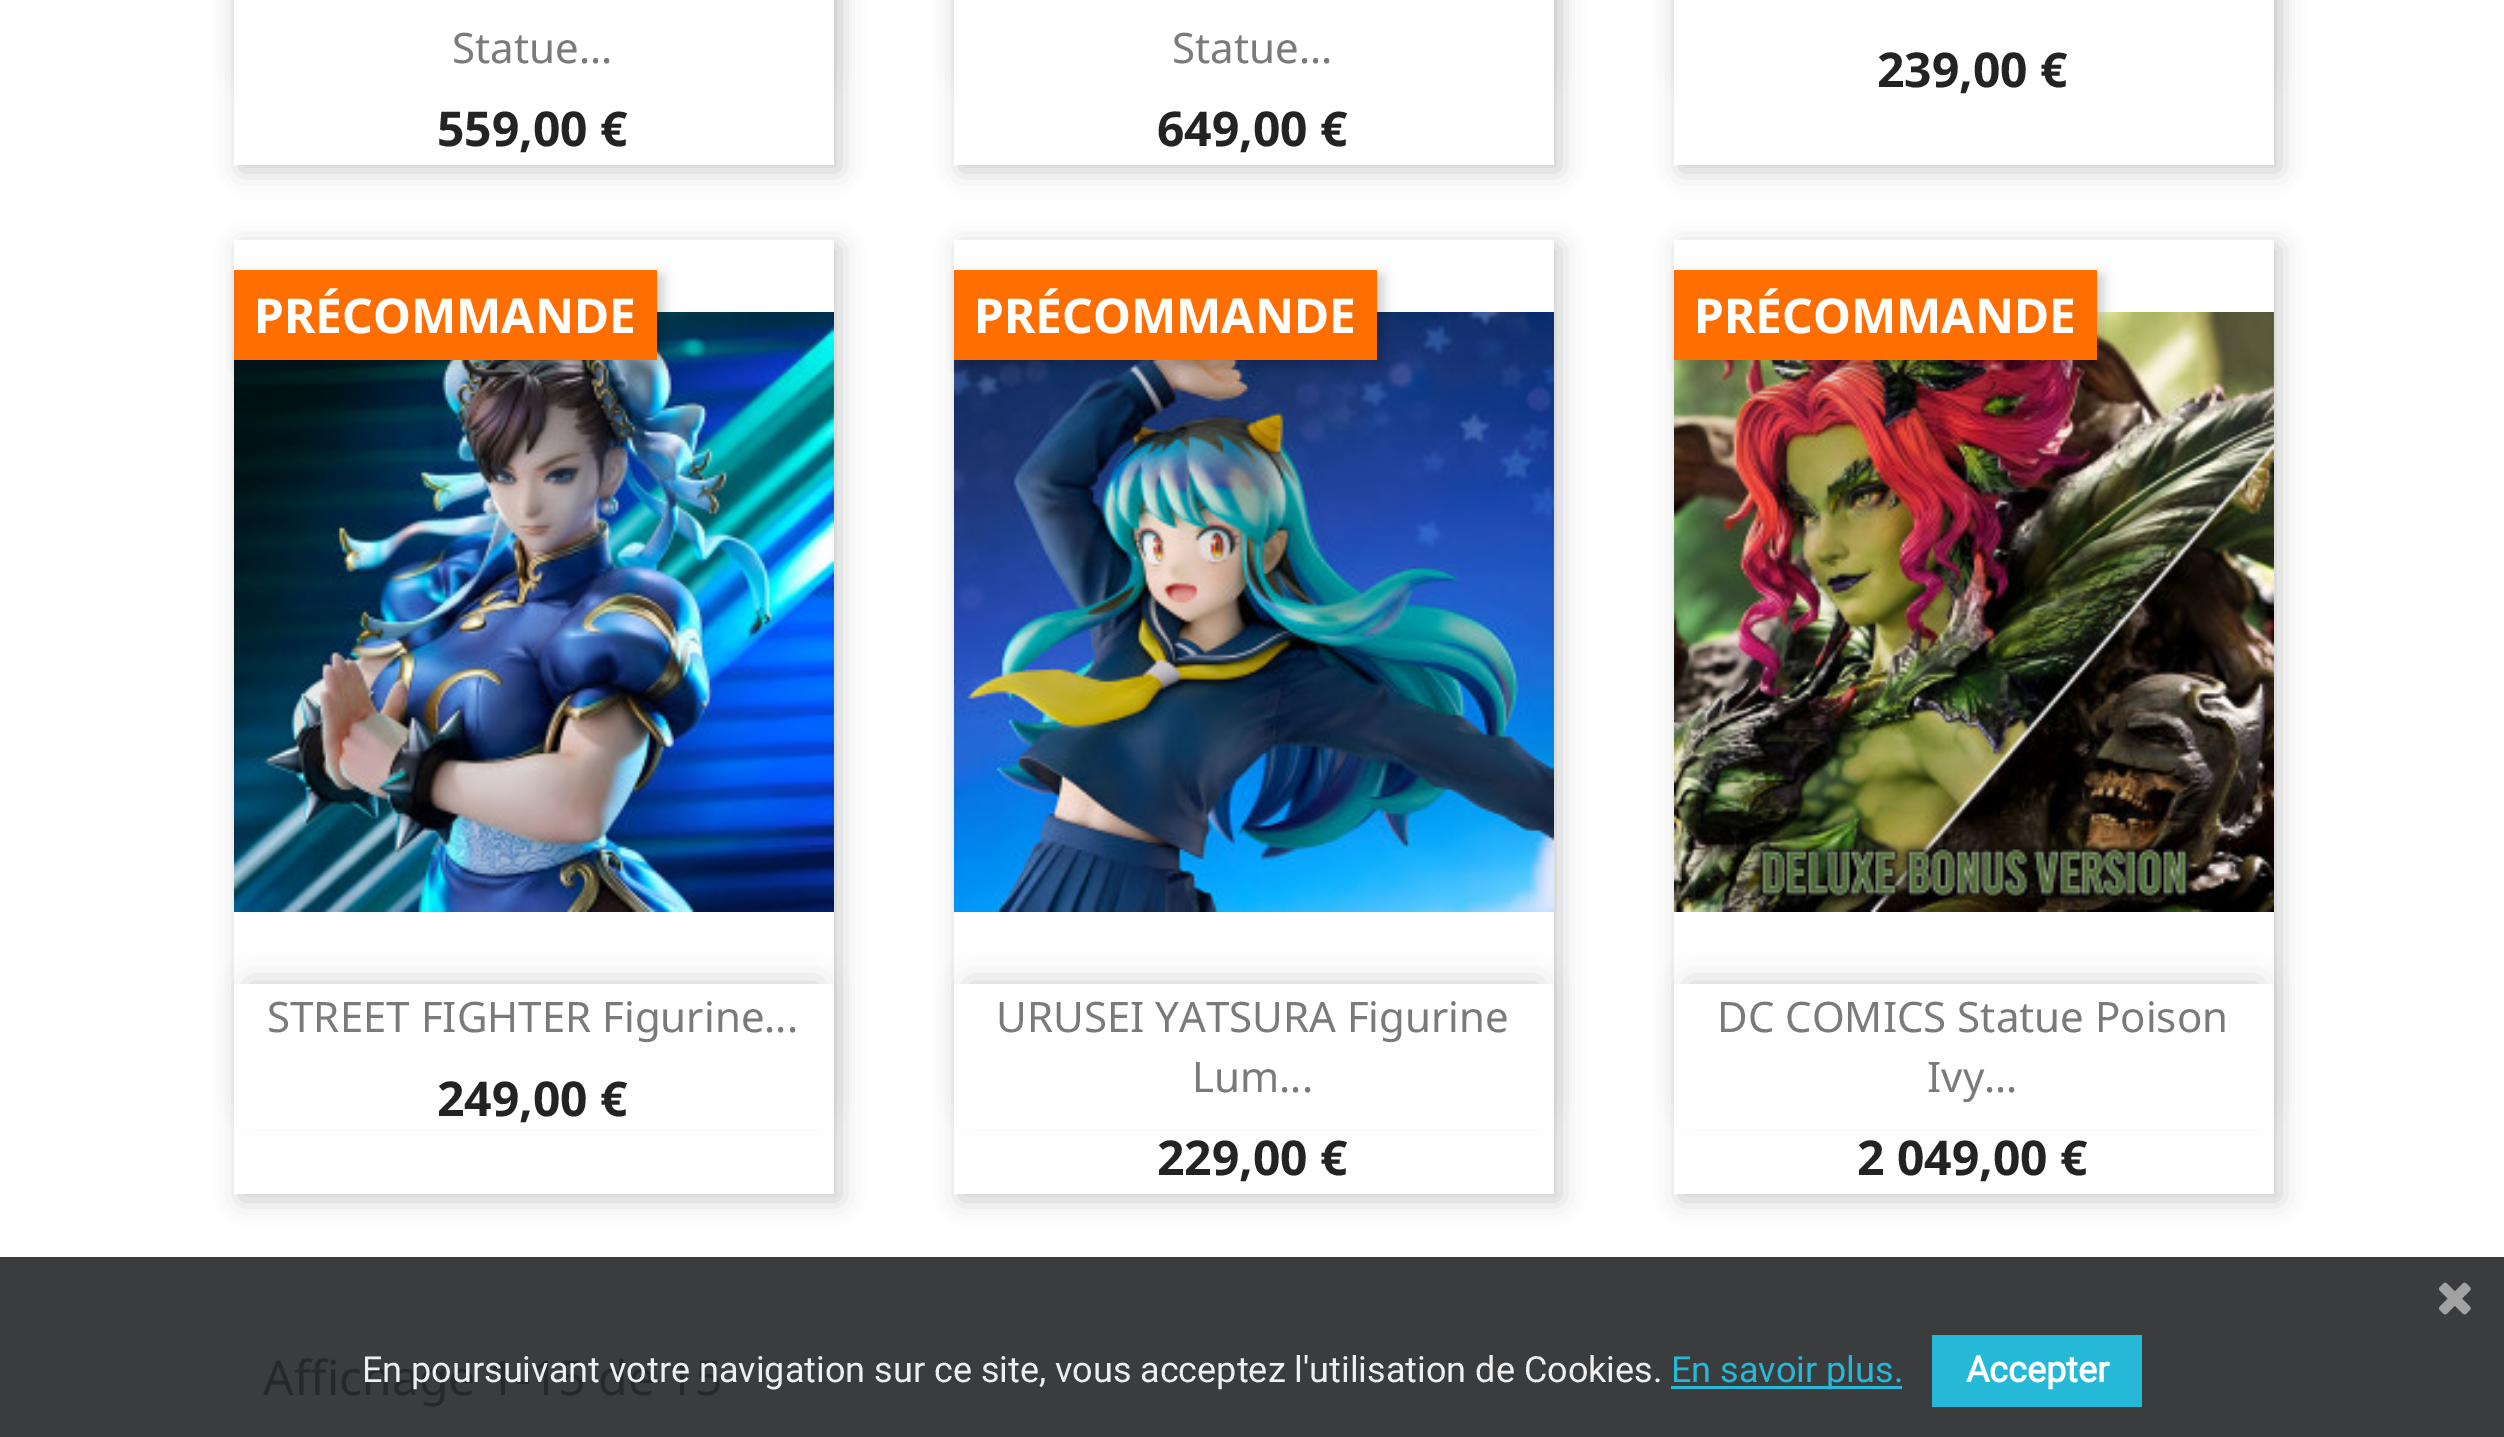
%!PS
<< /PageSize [2504 1437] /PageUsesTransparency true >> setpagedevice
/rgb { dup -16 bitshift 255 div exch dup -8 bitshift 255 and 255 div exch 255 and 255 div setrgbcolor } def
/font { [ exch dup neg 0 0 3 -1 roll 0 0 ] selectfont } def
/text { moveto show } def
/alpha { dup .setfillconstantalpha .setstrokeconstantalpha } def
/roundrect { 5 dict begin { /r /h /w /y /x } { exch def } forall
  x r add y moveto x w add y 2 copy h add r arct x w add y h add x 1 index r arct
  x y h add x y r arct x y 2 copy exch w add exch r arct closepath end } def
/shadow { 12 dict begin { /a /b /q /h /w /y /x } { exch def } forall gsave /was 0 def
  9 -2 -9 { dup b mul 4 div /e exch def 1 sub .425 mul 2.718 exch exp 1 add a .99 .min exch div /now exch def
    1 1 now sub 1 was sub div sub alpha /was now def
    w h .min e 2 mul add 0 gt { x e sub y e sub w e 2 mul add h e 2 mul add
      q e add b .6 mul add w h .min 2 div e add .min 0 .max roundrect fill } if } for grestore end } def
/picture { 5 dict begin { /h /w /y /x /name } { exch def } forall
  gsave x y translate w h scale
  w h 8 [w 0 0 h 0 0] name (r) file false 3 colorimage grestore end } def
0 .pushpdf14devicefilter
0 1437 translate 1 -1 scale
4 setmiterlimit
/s1 { /NotoSans-Regular 42 font 16#7A7A7A rgb } def
/s2 { /NotoSans-Bold 48 font 16#232323 rgb } def
/s3 { /NotoSans-Bold 48 font 16#FFFFFF rgb } def
/s4 { /NotoSans-Regular 48 font 16#26282A rgb } def
/s5 { /Roboto-Regular 36 font 16#EFEFEF rgb } def
/s6 { /Roboto-Regular 36 font 16#25B9D7 rgb } def
/s7 { /Roboto-Bold 36 font 16#FFFFFF rgb } def
16#FFFFFF rgb
0 0 2504 1437 rectfill
16#3A3C3E rgb
0 1257 2504 180 rectfill
16#000000 rgb
240 -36 600 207 0 12 0.2 shadow
249 -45 570 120 0 15 0.2 shadow
16#FFFFFF rgb
234 0 600 165 rectfill
s1
(Statue...) 452 63 text
s2
(559,00 €) 437 146 text
16#000000 rgb
960 -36 600 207 0 12 0.2 shadow
969 -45 570 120 0 15 0.2 shadow
16#FFFFFF rgb
954 0 600 165 rectfill
s1
(Statue...) 1172 63 text
s2
(649,00 €) 1157 146 text
16#000000 rgb
1680 -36 600 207 0 12 0.2 shadow
1689 -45 570 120 0 15 0.2 shadow
16#FFFFFF rgb
1674 0 600 165 rectfill
s2
(239,00 €) 1877 87 text
gsave
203 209 moveto 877 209 lineto 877 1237 lineto 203 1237 lineto closepath 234 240 moveto 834 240 lineto 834 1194 lineto 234 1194 lineto closepath eoclip newpath
16#000000 rgb
240 246 600 954 0 12 0.2 shadow
grestore
(pic1.raw) 234 312 600 600 picture
16#000000 rgb
240 276 423 90 0 6 0.2 shadow
16#FF6E01 rgb
234 270 423 90 rectfill
s3
(PRÉCOMMANDE) 254 333 text
16#000000 rgb
249 984 570 120 0 15 0.2 shadow
16#FFFFFF rgb
234 984 600 145 rectfill
s1
(STREET FIGHTER Figurine...) 267 1032 text
s2
(249,00 €) 437 1116 text
gsave
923 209 moveto 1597 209 lineto 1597 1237 lineto 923 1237 lineto closepath 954 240 moveto 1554 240 lineto 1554 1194 lineto 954 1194 lineto closepath eoclip newpath
16#000000 rgb
960 246 600 954 0 12 0.2 shadow
grestore
(pic2.raw) 954 312 600 600 picture
16#000000 rgb
960 276 423 90 0 6 0.2 shadow
16#FF6E01 rgb
954 270 423 90 rectfill
s3
(PRÉCOMMANDE) 974 333 text
16#000000 rgb
969 984 570 120 0 15 0.2 shadow
16#FFFFFF rgb
954 984 600 145 rectfill
s1
(URUSEI YATSURA Figurine) 996 1032 text
(Lum...) 1192 1092 text
s2
(229,00 €) 1157 1175 text
gsave
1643 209 moveto 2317 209 lineto 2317 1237 lineto 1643 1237 lineto closepath 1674 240 moveto 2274 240 lineto 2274 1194 lineto 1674 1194 lineto closepath eoclip newpath
16#000000 rgb
1680 246 600 954 0 12 0.2 shadow
grestore
(pic3.raw) 1674 312 600 600 picture
16#000000 rgb
1680 276 423 90 0 6 0.2 shadow
16#FF6E01 rgb
1674 270 423 90 rectfill
s3
(PRÉCOMMANDE) 1694 333 text
16#000000 rgb
1689 984 570 120 0 15 0.2 shadow
16#FFFFFF rgb
1674 984 600 145 rectfill
s1
(DC COMICS Statue Poison) 1717 1032 text
(Ivy...) 1927 1092 text
s2
(2 049,00 €) 1857 1175 text
s4
(Affichage 1-15 de 15) 263 1395 text
(pic4.raw) 2439 1282 32 33 picture
s5
(En poursuivant votre navigation sur ce site, vous acceptez l'utilisation de Cookies.) 362 1382 text
16#25B9D7 rgb
1671 1386 231 3 rectfill
(En savoir plus.) 1671 1382 text
1932 1335 210 72 rectfill
s7
(Accepter) 1966 1382 text
.poppdf14devicefilter showpage
